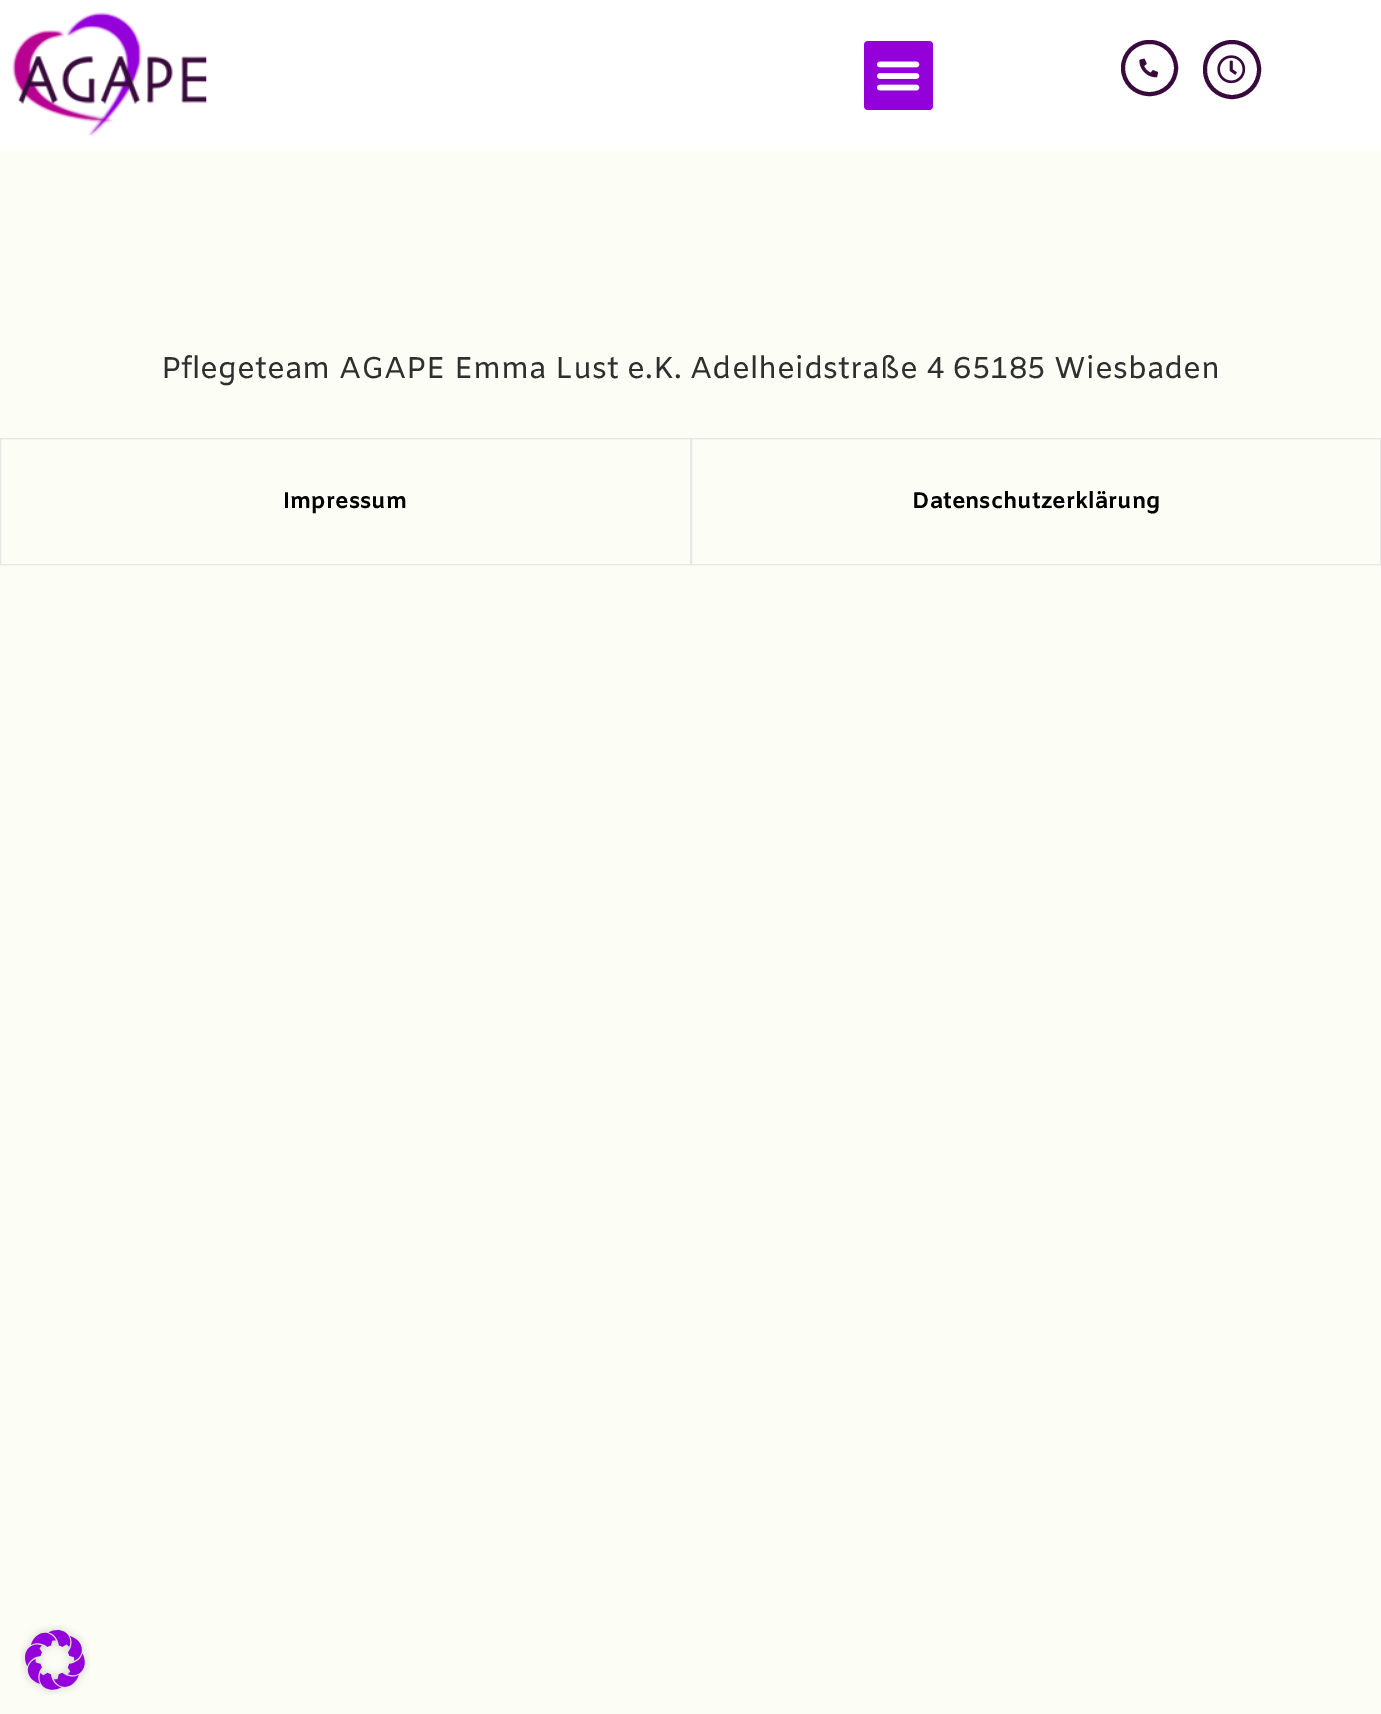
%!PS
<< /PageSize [1381 1714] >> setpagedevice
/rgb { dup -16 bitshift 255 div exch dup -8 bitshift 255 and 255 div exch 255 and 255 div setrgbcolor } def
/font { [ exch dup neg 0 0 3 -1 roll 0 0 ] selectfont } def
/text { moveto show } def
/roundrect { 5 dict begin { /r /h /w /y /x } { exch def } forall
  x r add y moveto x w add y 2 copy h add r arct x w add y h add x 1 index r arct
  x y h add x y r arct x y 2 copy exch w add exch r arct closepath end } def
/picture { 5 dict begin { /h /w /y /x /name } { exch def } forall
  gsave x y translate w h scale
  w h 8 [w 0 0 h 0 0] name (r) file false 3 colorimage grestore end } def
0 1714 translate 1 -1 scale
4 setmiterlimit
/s1 { /Amiko-Regular 30 font 16#2F2F2F rgb } def
/s2 { /Amiko-Bold 22.5 font 16#000000 rgb } def
16#FCFDF4 rgb
0 0 1381 1714 rectfill
16#FFFFFF rgb
0 0 1381 151 rectfill
(pic1.raw) 12 12 195 125 picture
16#9400DA rgb
864 41 69 69 4 roundrect fill
(pic2.raw) 877 61 43 30 picture
16#390B3D rgb
4 setlinewidth
1123 42 53 52 26 roundrect stroke
(pic3.raw) 1139 58 20 20 picture
1205 42 54 55 27 roundrect stroke
(pic4.raw) 1217 55 29 29 picture
s1
(Pflegeteam AGAPE Emma Lust e.K. Adelheidstraße 4 65185 Wiesbaden) 161 378 text
16#E6E6E6 rgb
1 setlinewidth
0.5 438.5 690 126 rectstroke
s2
(Impressum) 283 508 text
16#E6E6E6 rgb
691.5 438.5 689 126 rectstroke
s2
(Datenschutzerklärung) 912 508 text
(pic5.raw) 20 1625 70 70 picture
showpage
